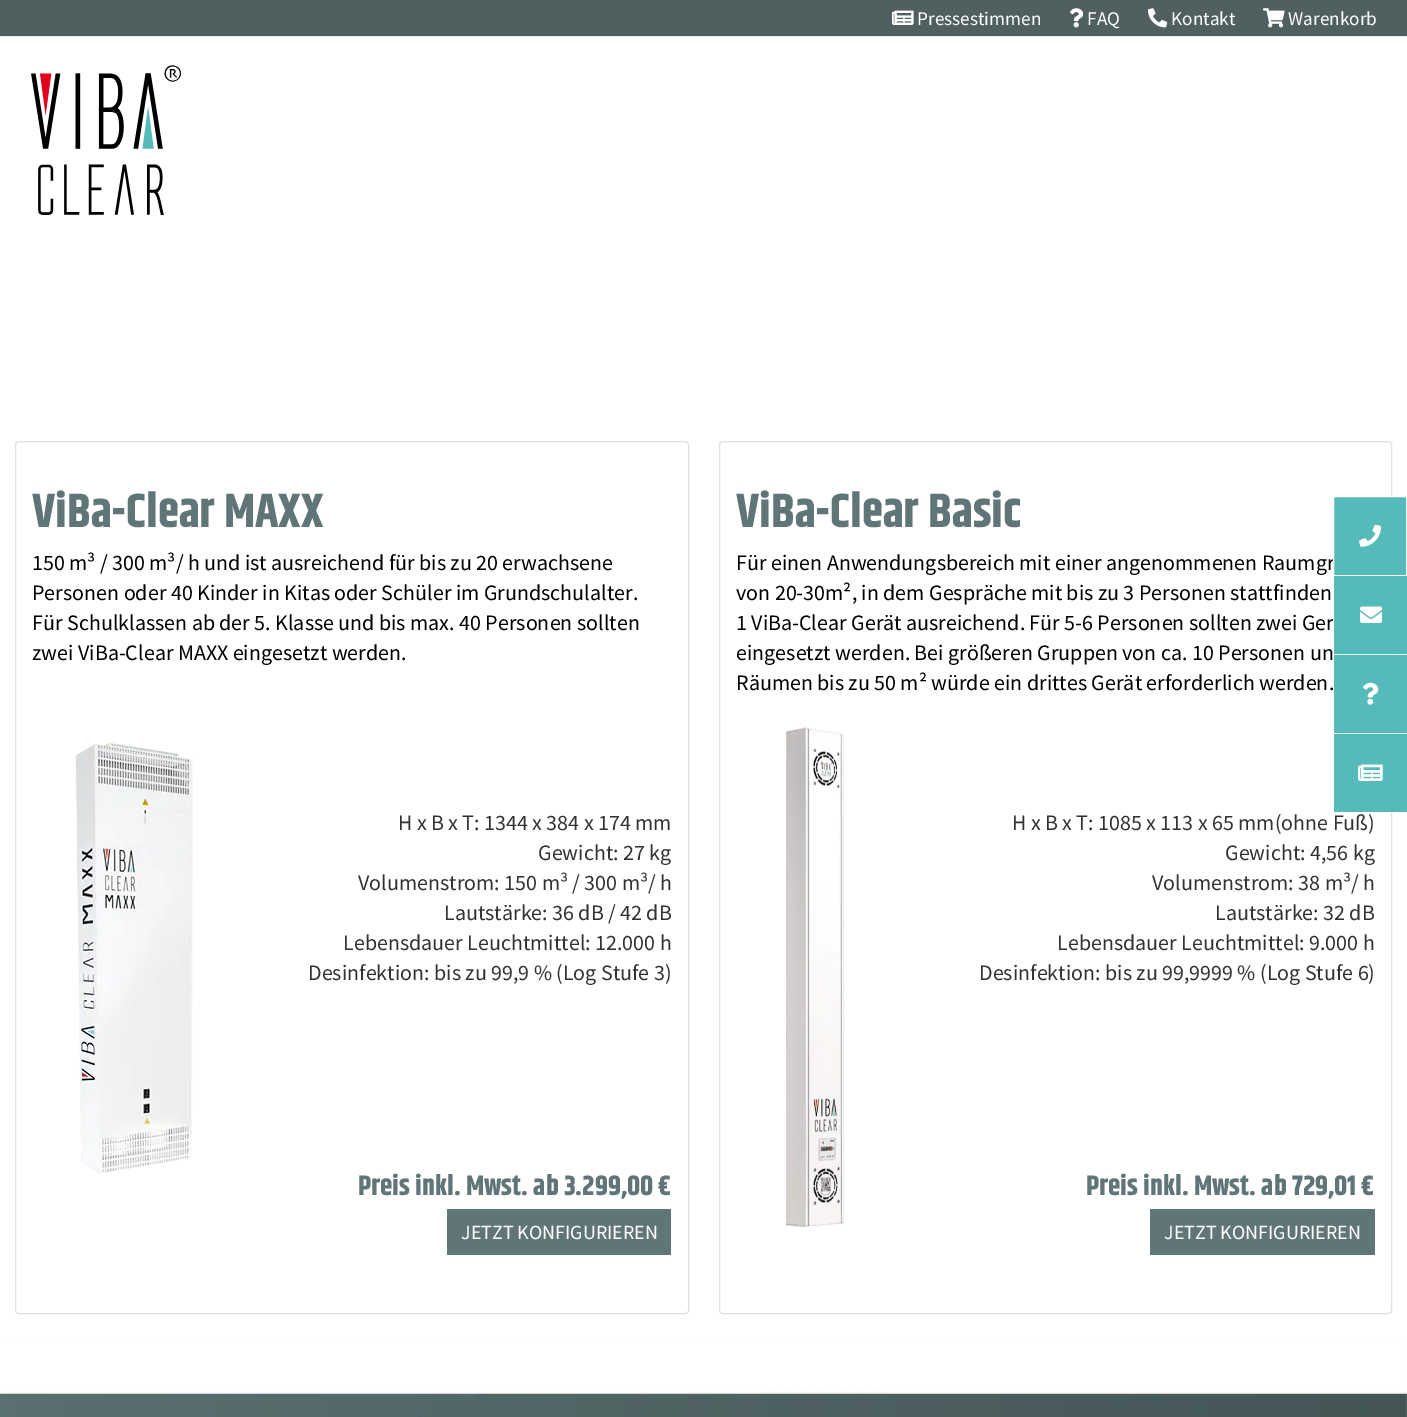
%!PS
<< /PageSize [1407 1417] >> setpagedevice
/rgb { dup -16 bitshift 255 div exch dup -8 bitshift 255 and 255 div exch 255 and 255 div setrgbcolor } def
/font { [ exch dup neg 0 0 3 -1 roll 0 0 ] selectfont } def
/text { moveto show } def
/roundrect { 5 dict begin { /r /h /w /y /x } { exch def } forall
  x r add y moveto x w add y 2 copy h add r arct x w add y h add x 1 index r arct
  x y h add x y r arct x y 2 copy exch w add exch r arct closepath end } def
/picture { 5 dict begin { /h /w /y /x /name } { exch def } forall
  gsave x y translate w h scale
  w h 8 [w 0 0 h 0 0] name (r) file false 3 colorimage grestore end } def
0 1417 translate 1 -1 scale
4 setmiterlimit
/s1 { /SourceSansPro-Regular 19.25 font 16#FFFFFF rgb } def
/s2 { /SourceSansPro-Regular 22 font 16#000000 rgb } def
/s3 { /Khand-Bold 48 font 16#5F7577 rgb } def
/s4 { /SourceSansPro-Regular 22 font 16#333232 rgb } def
/s5 { /Khand-Bold 28 font 16#5F7577 rgb } def
/s6 { /SourceSansPro-Regular 20 font 16#FFFFFF rgb } def
16#FFFFFF rgb
0 0 1407 1417 rectfill
16#EBEBEB rgb
0 36 1407 1 rectfill
16#505F60 rgb
0 0 1407 36 rectfill
(pic1.raw) 892 10 22 15 picture
s1
(Pressestimmen) 917 25 text
(pic2.raw) 1070 8 14 20 picture
(FAQ) 1087 25 text
(pic3.raw) 1148 8 20 20 picture
(Kontakt) 1171 25 text
(pic4.raw) 1263 8 22 20 picture
(Warenkorb) 1288 25 text
16#DFDFDF rgb
719.5 441.5 672 872 3.5 roundrect stroke
s2
(Für einen Anwendungsbereich mit einer angenommenen Raumgr) 736 570 text
16#54BBBA rgb
1333.5 496.5 moveto 1406.5 496.5 lineto 1406.5 575.5 lineto 1333.5 575.5 lineto closepath gsave fill grestore
16#FFFFFF rgb
stroke
(pic5.raw) 1359 524 22 23 picture
16#54BBBA rgb
1334 576 73 78 rectfill
16#FFFFFF rgb
1391 654 1 1 rectfill
s2
(1 ViBa-Clear Gerät ausreichend. Für 5-6 Personen sollten zwei Ger) 736 630 text
16#FFFFFF rgb
1333 619 1 2 rectfill
(pic6.raw) 1360 606 22 17 picture
16#54BBBA rgb
1334 655 73 78 rectfill
16#FFFFFF rgb
1391 733 1 1 rectfill
(pic7.raw) 1363 682 16 23 picture
16#54BBBA rgb
1334 734 73 78 rectfill
16#FFFFFF rgb
1391 812 1 1 rectfill
(pic8.raw) 1358 764 25 17 picture
(pic9.raw) 31 65 150 150 picture
16#DFDFDF rgb
15.5 441.5 673 872 3.5 roundrect stroke
s3
(ViBa-Clear MAXX) 32 527 text
s2
(150 m³ / 300 m³/ h und ist ausreichend für bis zu 20 erwachsene) 32 570 text
(Personen oder 40 Kinder in Kitas oder Schüler im Grundschulalter.) 32 600 text
(Für Schulklassen ab der 5. Klasse und bis max. 40 Personen sollten) 32 630 text
(zwei ViBa-Clear MAXX eingesetzt werden.) 32 660 text
(pic10.raw) 75 742 118 432 picture
s4
(H x B x T: 1344 x 384 x 174 mm) 398 830 text
(Gewicht: 27 kg) 538 860 text
(Volumenstrom: 150 m³ / 300 m³/ h) 358 890 text
(Lautstärke: 36 dB / 42 dB) 444 920 text
(Lebensdauer Leuchtmittel: 12.000 h) 343 950 text
(Desinfektion: bis zu 99,9 % \(Log Stufe 3\)) 308 980 text
s5
(Preis inkl. Mwst. ab 3.299,00 €) 358 1195 text
447 1209 224 46 rectfill
s6
(JETZT KONFIGURIEREN) 461 1239 text
s3
(ViBa-Clear Basic) 736 527 text
s2
(von 20-30m², in dem Gespräche mit bis zu 3 Personen stattfinden) 736 600 text
(eingesetzt werden. Bei größeren Gruppen von ca. 10 Personen un) 736 660 text
(Räumen bis zu 50 m² würde ein drittes Gerät erforderlich werden.) 736 690 text
(pic11.raw) 786 726 58 501 picture
s4
(H x B x T: 1085 x 113 x 65 mm\(ohne Fuß\)) 1012 830 text
(Gewicht: 4,56 kg) 1225 860 text
(Volumenstrom: 38 m³/ h) 1152 890 text
(Lautstärke: 32 dB) 1215 920 text
(Lebensdauer Leuchtmittel: 9.000 h) 1057 950 text
(Desinfektion: bis zu 99,9999 % \(Log Stufe 6\)) 979 980 text
s5
(Preis inkl. Mwst. ab 729,01 €) 1086 1195 text
1150 1209 225 46 rectfill
s6
(JETZT KONFIGURIEREN) 1164 1239 text
(pic12.raw) 0 1342 1407 75 picture
showpage
